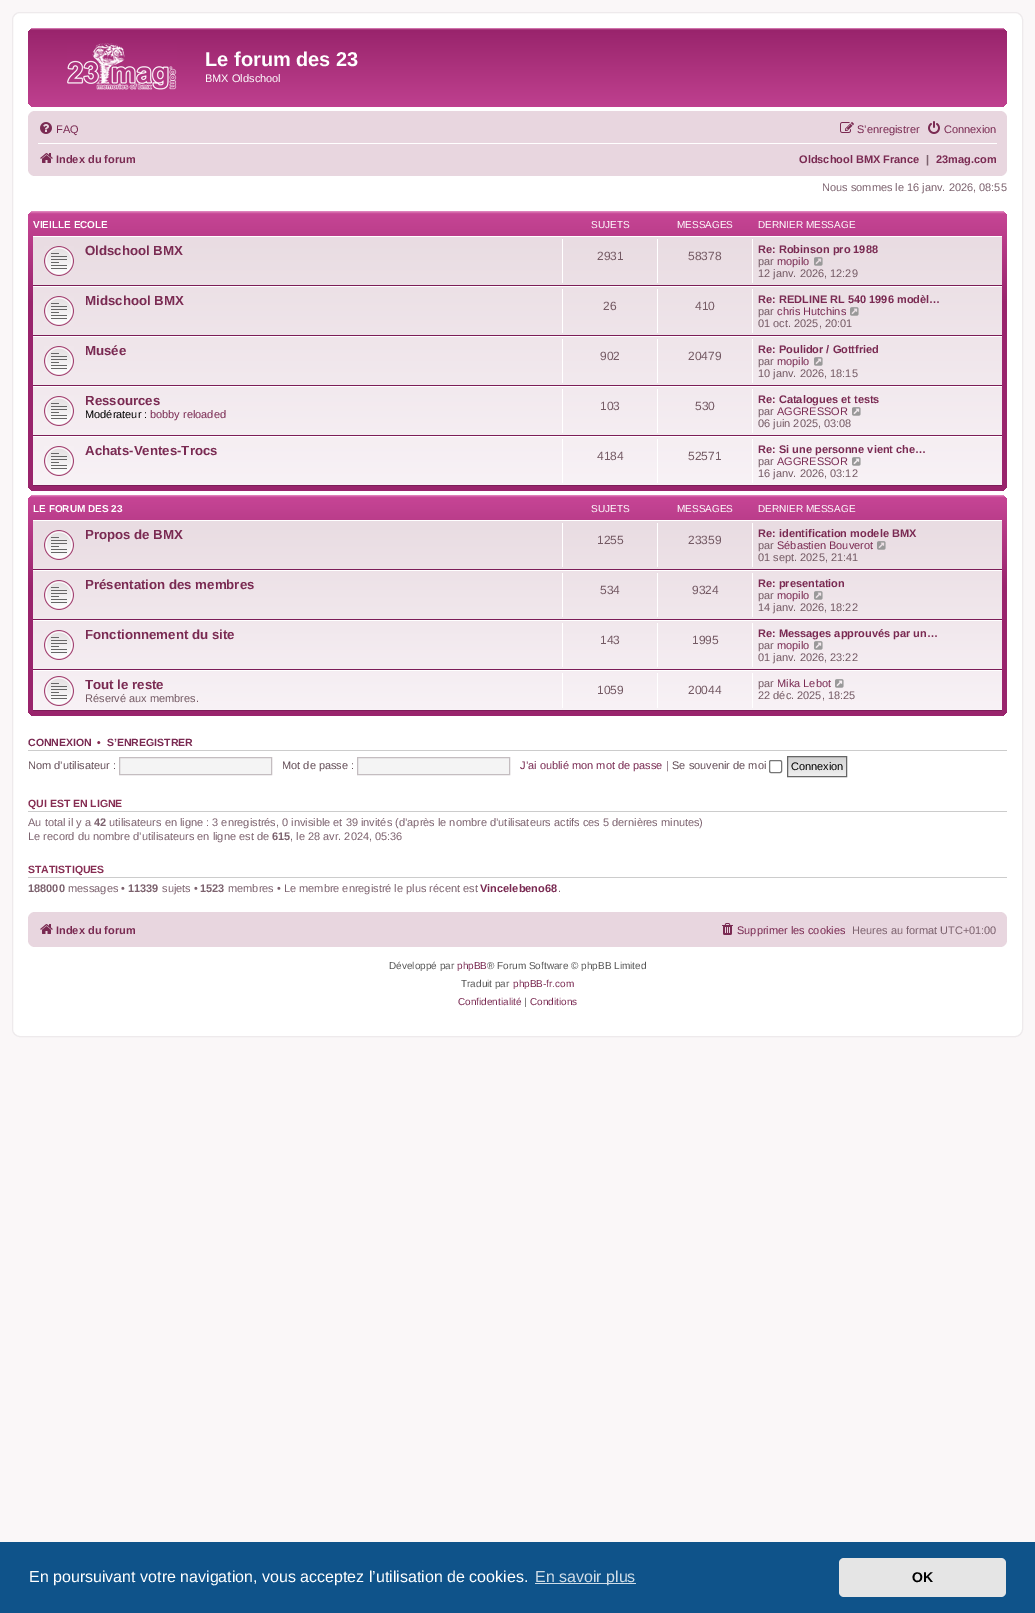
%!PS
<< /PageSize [1035 1613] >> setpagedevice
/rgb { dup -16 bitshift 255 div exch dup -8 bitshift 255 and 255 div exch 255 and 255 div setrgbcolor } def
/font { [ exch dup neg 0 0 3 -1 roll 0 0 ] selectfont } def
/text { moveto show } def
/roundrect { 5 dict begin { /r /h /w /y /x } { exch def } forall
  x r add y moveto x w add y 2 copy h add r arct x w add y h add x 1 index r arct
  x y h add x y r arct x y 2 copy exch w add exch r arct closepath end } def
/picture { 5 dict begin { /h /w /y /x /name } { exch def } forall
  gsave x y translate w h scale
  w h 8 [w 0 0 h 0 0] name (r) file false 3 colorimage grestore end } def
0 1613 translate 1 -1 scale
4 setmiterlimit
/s1 { /LiberationSans-Bold 20 font 16#FFFFFF rgb } def
/s2 { /LiberationSans-Regular 11 font 16#FFFFFF rgb } def
/s3 { /LiberationSans-Regular 11 font 16#7A2A52 rgb } def
/s4 { /LiberationSans-Bold 11 font 16#7A2A52 rgb } def
/s5 { /LiberationSans-Bold 11 font 16#7C626E rgb } def
/s6 { /LiberationSans-Regular 11 font 16#7C626E rgb } def
/s7 { /LiberationSans-Bold 10 font 16#FFFFFF rgb } def
/s8 { /LiberationSans-Regular 10 font 16#FFFFFF rgb } def
/s9 { /LiberationSans-Bold 13.25 font 16#7A2A52 rgb } def
/s10 { /LiberationSans-Regular 12 font 16#745A64 rgb } def
/s11 { /LiberationSans-Regular 11 font 16#745A64 rgb } def
/s12 { /LiberationSans-Regular 11 font 16#000000 rgb } def
/s13 { /LiberationSans-Bold 10.5 font 16#7A2A52 rgb } def
/s14 { /LiberationSans-Bold 10.5 font 16#872E53 rgb } def
/s15 { /LiberationSans-Regular 11 font 16#644E57 rgb } def
/s16 { /LiberationSans-Regular 10 font 16#555555 rgb } def
/s17 { /LiberationSans-Regular 10 font 16#7A2A52 rgb } def
/s18 { /LiberationSans-Regular 16 font 16#FFFFFF rgb } def
/s19 { /LiberationSans-Regular 16 font 16#CFDDE8 rgb } def
/s20 { /LiberationSans-Bold 14 font 16#000000 rgb } def
16#FAF7F8 rgb
0 0 1035 1613 rectfill
16#FFFFFF rgb
12.5 12.5 1010 1024 7.5 roundrect gsave fill grestore
16#EEEAEC rgb
stroke
gsave 28 28 979 79 7 roundrect clip newpath
<< /ShadingType 2 /ColorSpace /DeviceRGB /Coords [518 28 518 120] /Extend [true true] /Function << /FunctionType 3 /Domain [0 1] /Functions [<< /FunctionType 2 /Domain [0 1] /C0 [0.898 0.569 0.773] /C1 [0.6 0.141 0.424] /N 1 >> << /FunctionType 2 /Domain [0 1] /C0 [0.6 0.141 0.424] /C1 [0.776 0.271 0.584] /N 1 >>] /Bounds [0.02] /Encode [0 1 0 1] >> >> shfill grestore
(pic1.raw) 67 43 110 47 picture
s1
(Le forum des 23) 205 66 text
s2
(BMX Oldschool) 205 82 text
16#E8D6DF rgb
28 111 979 65 7 roundrect fill
(pic2.raw) 40 122 12 12 picture
s3
(FAQ) 56 133 text
(pic3.raw) 840 122 14 11 picture
(S’enregistrer) 857 133 text
(pic4.raw) 928 121 12 13 picture
(Connexion) 944 133 text
16#FFFFFF rgb
38 143 959 1 rectfill
(pic5.raw) 40 153 13 10 picture
s4
(Index du forum) 56 163 text
(Oldschool BMX France) 799 163 text
s5
(|) 926 163 text
s4
(23mag.com) 936 163 text
s6
(Nous sommes le 16 janv. 2026, 08:55) 822 191 text
gsave 28 211 979 280 7 roundrect clip newpath
<< /ShadingType 2 /ColorSpace /DeviceRGB /Coords [518 211 518 491] /Extend [true true] /Function << /FunctionType 3 /Domain [0 1] /Functions [<< /FunctionType 2 /Domain [0 1] /C0 [0.898 0.569 0.773] /C1 [0.776 0.271 0.584] /N 1 >> << /FunctionType 2 /Domain [0 1] /C0 [0.776 0.271 0.584] /C1 [0.6 0.141 0.424] /N 1 >> << /FunctionType 2 /Domain [0 1] /C0 [0.6 0.141 0.424] /C1 [0.6 0.141 0.424] /N 1 >>] /Bounds [0.01 0.33] /Encode [0 1 0 1 0 1] >> >> shfill grestore
s7
(VIEILLE ECOLE) 33 228 text
s8
(SUJETS) 591 228 text
(MESSAGES) 677 228 text
(DERNIER MESSAGE) 758 228 text
gsave 33 237 moveto 1002 237 lineto 1002 485 lineto 33 485 lineto closepath clip newpath
<< /ShadingType 2 /ColorSpace /DeviceRGB /Coords [518 236 518 486] /Extend [true true] /Function << /FunctionType 2 /Domain [0 1] /C0 [0.914 0.863 0.886] /C1 [0.973 0.949 0.965] /N 1 >> >> shfill grestore
33 236 969 1 rectfill
16#7C1D58 rgb
33 285 969 1 rectfill
(pic6.raw) 44 246 30 30 picture
s9
(Oldschool BMX) 85 255 text
16#FFFFFF rgb
562 239 1 44 rectfill
s10
(2931) 597 260 text
16#FFFFFF rgb
657 239 1 44 rectfill
s10
(58378) 688 260 text
16#FFFFFF rgb
752 239 1 44 rectfill
s4
(Re: Robinson pro 1988) 758 253 text
s11
(par) 758 265 text
s3
(mopilo) 777 265 text
(pic7.raw) 814 257 9 9 picture
s11
(12 janv. 2026, 12:29) 758 277 text
16#FFFFFF rgb
33 286 969 1 rectfill
16#7C1D58 rgb
33 335 969 1 rectfill
(pic8.raw) 44 296 30 30 picture
s9
(Midschool BMX) 85 305 text
16#FFFFFF rgb
562 289 1 44 rectfill
s10
(26) 603 310 text
16#FFFFFF rgb
657 289 1 44 rectfill
s10
(410) 695 310 text
16#FFFFFF rgb
752 289 1 44 rectfill
s4
(Re: REDLINE RL 540 1996 modèl…) 758 303 text
s11
(par) 758 315 text
s3
(chris Hutchins) 777 315 text
(pic9.raw) 850 307 9 9 picture
s11
(01 oct. 2025, 20:01) 758 327 text
16#FFFFFF rgb
33 336 969 1 rectfill
16#7C1D58 rgb
33 385 969 1 rectfill
(pic10.raw) 44 346 30 30 picture
s9
(Musée) 85 355 text
16#FFFFFF rgb
562 339 1 44 rectfill
s10
(902) 600 360 text
16#FFFFFF rgb
657 339 1 44 rectfill
s10
(20479) 688 360 text
16#FFFFFF rgb
752 339 1 44 rectfill
s4
(Re: Poulidor / Gottfried) 758 353 text
s11
(par) 758 365 text
s3
(mopilo) 777 365 text
(pic11.raw) 814 357 9 9 picture
s11
(10 janv. 2026, 18:15) 758 377 text
16#FFFFFF rgb
33 386 969 1 rectfill
16#7C1D58 rgb
33 435 969 1 rectfill
(pic12.raw) 44 396 30 30 picture
s9
(Ressources) 85 405 text
s12
(Modérateur :) 85 418 text
s3
(bobby reloaded) 150 418 text
16#FFFFFF rgb
562 389 1 44 rectfill
s10
(103) 600 410 text
16#FFFFFF rgb
657 389 1 44 rectfill
s10
(530) 695 410 text
16#FFFFFF rgb
752 389 1 44 rectfill
s4
(Re: Catalogues et tests) 758 403 text
s11
(par) 758 415 text
s3
(AGGRESSOR) 777 415 text
(pic13.raw) 852 407 9 9 picture
s11
(06 juin 2025, 03:08) 758 427 text
16#FFFFFF rgb
33 436 969 1 rectfill
16#7C1D58 rgb
33 485 969 1 rectfill
(pic14.raw) 44 446 30 30 picture
s9
(Achats-Ventes-Trocs) 85 455 text
16#FFFFFF rgb
562 439 1 44 rectfill
s10
(4184) 597 460 text
16#FFFFFF rgb
657 439 1 44 rectfill
s10
(52571) 688 460 text
16#FFFFFF rgb
752 439 1 44 rectfill
s4
(Re: Si une personne vient che…) 758 453 text
s11
(par) 758 465 text
s3
(AGGRESSOR) 777 465 text
(pic15.raw) 852 457 9 9 picture
s11
(16 janv. 2026, 03:12) 758 477 text
gsave 28 495 979 221 7 roundrect clip newpath
<< /ShadingType 2 /ColorSpace /DeviceRGB /Coords [518 495 518 716] /Extend [true true] /Function << /FunctionType 3 /Domain [0 1] /Functions [<< /FunctionType 2 /Domain [0 1] /C0 [0.898 0.569 0.773] /C1 [0.776 0.271 0.584] /N 1 >> << /FunctionType 2 /Domain [0 1] /C0 [0.776 0.271 0.584] /C1 [0.6 0.141 0.424] /N 1 >> << /FunctionType 2 /Domain [0 1] /C0 [0.6 0.141 0.424] /C1 [0.6 0.141 0.424] /N 1 >>] /Bounds [0.01 0.42] /Encode [0 1 0 1 0 1] >> >> shfill grestore
s7
(LE FORUM DES 23) 33 512 text
s8
(SUJETS) 591 512 text
(MESSAGES) 677 512 text
(DERNIER MESSAGE) 758 512 text
gsave 33 521 moveto 1002 521 lineto 1002 710 lineto 33 710 lineto closepath clip newpath
<< /ShadingType 2 /ColorSpace /DeviceRGB /Coords [518 520 518 711] /Extend [true true] /Function << /FunctionType 2 /Domain [0 1] /C0 [0.914 0.863 0.886] /C1 [0.973 0.949 0.965] /N 1 >> >> shfill grestore
33 520 969 1 rectfill
16#7C1D58 rgb
33 569 969 1 rectfill
(pic16.raw) 44 530 30 30 picture
s9
(Propos de BMX) 85 539 text
16#FFFFFF rgb
562 523 1 44 rectfill
s10
(1255) 597 544 text
16#FFFFFF rgb
657 523 1 44 rectfill
s10
(23359) 688 544 text
16#FFFFFF rgb
752 523 1 44 rectfill
s4
(Re: identification modele BMX) 758 537 text
s11
(par) 758 549 text
s3
(Sébastien Bouverot) 777 549 text
(pic17.raw) 877 541 9 9 picture
s11
(01 sept. 2025, 21:41) 758 561 text
16#FFFFFF rgb
33 570 969 1 rectfill
16#7C1D58 rgb
33 619 969 1 rectfill
(pic18.raw) 44 580 30 30 picture
s9
(Présentation des membres) 85 589 text
16#FFFFFF rgb
562 573 1 44 rectfill
s10
(534) 600 594 text
16#FFFFFF rgb
657 573 1 44 rectfill
s10
(9324) 692 594 text
16#FFFFFF rgb
752 573 1 44 rectfill
s4
(Re: presentation) 758 587 text
s11
(par) 758 599 text
s3
(mopilo) 777 599 text
(pic19.raw) 814 591 9 9 picture
s11
(14 janv. 2026, 18:22) 758 611 text
16#FFFFFF rgb
33 620 969 1 rectfill
16#7C1D58 rgb
33 669 969 1 rectfill
(pic20.raw) 44 630 30 30 picture
s9
(Fonctionnement du site) 85 639 text
16#FFFFFF rgb
562 623 1 44 rectfill
s10
(143) 600 644 text
16#FFFFFF rgb
657 623 1 44 rectfill
s10
(1995) 692 644 text
16#FFFFFF rgb
752 623 1 44 rectfill
s4
(Re: Messages approuvés par un…) 758 637 text
s11
(par) 758 649 text
s3
(mopilo) 777 649 text
(pic21.raw) 814 641 9 9 picture
s11
(01 janv. 2026, 23:22) 758 661 text
16#FFFFFF rgb
33 670 969 1 rectfill
16#7C1D58 rgb
33 710 969 1 rectfill
(pic22.raw) 44 676 30 30 picture
s9
(Tout le reste) 85 689 text
s11
(Réservé aux membres.) 85 702 text
16#FFFFFF rgb
562 673 1 35 rectfill
s10
(1059) 597 694 text
16#FFFFFF rgb
657 673 1 35 rectfill
s10
(20044) 688 694 text
16#FFFFFF rgb
752 673 1 35 rectfill
s11
(par) 758 687 text
s3
(Mika Lebot) 777 687 text
(pic23.raw) 835 679 9 9 picture
s11
(22 déc. 2025, 18:25) 758 699 text
16#CCCCCC rgb
28 750 979 1 rectfill
s13
(CONNEXION) 28 746 text
s14
(•) 97 746 text
s13
(S’ENREGISTRER) 107 746 text
s15
(Nom d’utilisateur :) 28 769 text
16#F4F4F4 rgb
119.5 757.5 moveto 271.5 757.5 lineto 271.5 774.5 lineto 119.5 774.5 lineto closepath gsave fill grestore
16#C4BDC0 rgb
stroke
s15
(Mot de passe :) 282 769 text
16#F4F4F4 rgb
357.5 757.5 moveto 509.5 757.5 lineto 509.5 774.5 lineto 357.5 774.5 lineto closepath gsave fill grestore
16#C4BDC0 rgb
stroke
s3
(J’ai oublié mon mot de passe) 520 769 text
s6
(|) 666 769 text
s15
(Se souvenir de moi) 672 769 text
16#767676 rgb
769.5 760.5 12 12 1.5 roundrect stroke
gsave 788 757 moveto 846 757 lineto 846 776 lineto 788 776 lineto closepath clip newpath
<< /ShadingType 2 /ColorSpace /DeviceRGB /Coords [817 757 817 776] /Extend [true true] /Function << /FunctionType 2 /Domain [0 1] /C0 [0.824 0.824 0.824] /C1 [0.937 0.937 0.937] /N 1 >> >> shfill grestore
16#666666 rgb
787.5 756.5 59 20 rectstroke
s12
(Connexion) 791 770 text
16#CCCCCC rgb
28 811 979 1 rectfill
s14
(QUI EST EN LIGNE) 28 807 text
s6
(Au total il y a) 28 826 text
s5
(42) 94 826 text
s6
(utilisateurs en ligne : 3 enregistrés, 0 invisible et 39 invités \(d’après le nombre d’utilisateurs actifs ces 5 dernières minutes\)) 109 826 text
(Le record du nombre d’utilisateurs en ligne est de) 28 840 text
s5
(615) 272 840 text
s6
(, le 28 avr. 2024, 05:36) 290 840 text
16#CCCCCC rgb
28 877 979 1 rectfill
s14
(STATISTIQUES) 28 873 text
s5
(188000) 28 892 text
s6
(messages •) 68 892 text
s5
(11339) 128 892 text
s6
(sujets •) 162 892 text
s5
(1523) 200 892 text
s6
(membres • Le membre enregistré le plus récent est) 228 892 text
s4
(Vincelebeno68) 480 892 text
s6
(.) 558 892 text
16#E8D6DF rgb
28 912 979 35 7 roundrect fill
(pic5.raw) 40 924 13 10 picture
s4
(Index du forum) 56 934 text
(pic24.raw) 722 923 11 12 picture
s3
(Supprimer les cookies) 737 934 text
s6
(Heures au format UTC+01:00) 852 934 text
s16
(Développé par) 389 969 text
s17
(phpBB) 457 969 text
s16
(® Forum Software © phpBB Limited) 487 969 text
(Traduit par) 461 987 text
s17
(phpBB-fr.com) 513 987 text
(Confidentialité) 458 1005 text
s16
(|) 524 1005 text
s17
(Conditions) 530 1005 text
16#0F538A rgb
0 1542 1035 71 rectfill
s18
(En poursuivant votre navigation, vous acceptez l’utilisation de cookies.) 29 1582 text
16#CFDDE8 rgb
535 1583 101 1 rectfill
(En savoir plus) 535 1582 text
16#E5E5E5 rgb
839 1558 167 39 5 roundrect fill
s20
(OK) 912 1582 text
showpage
